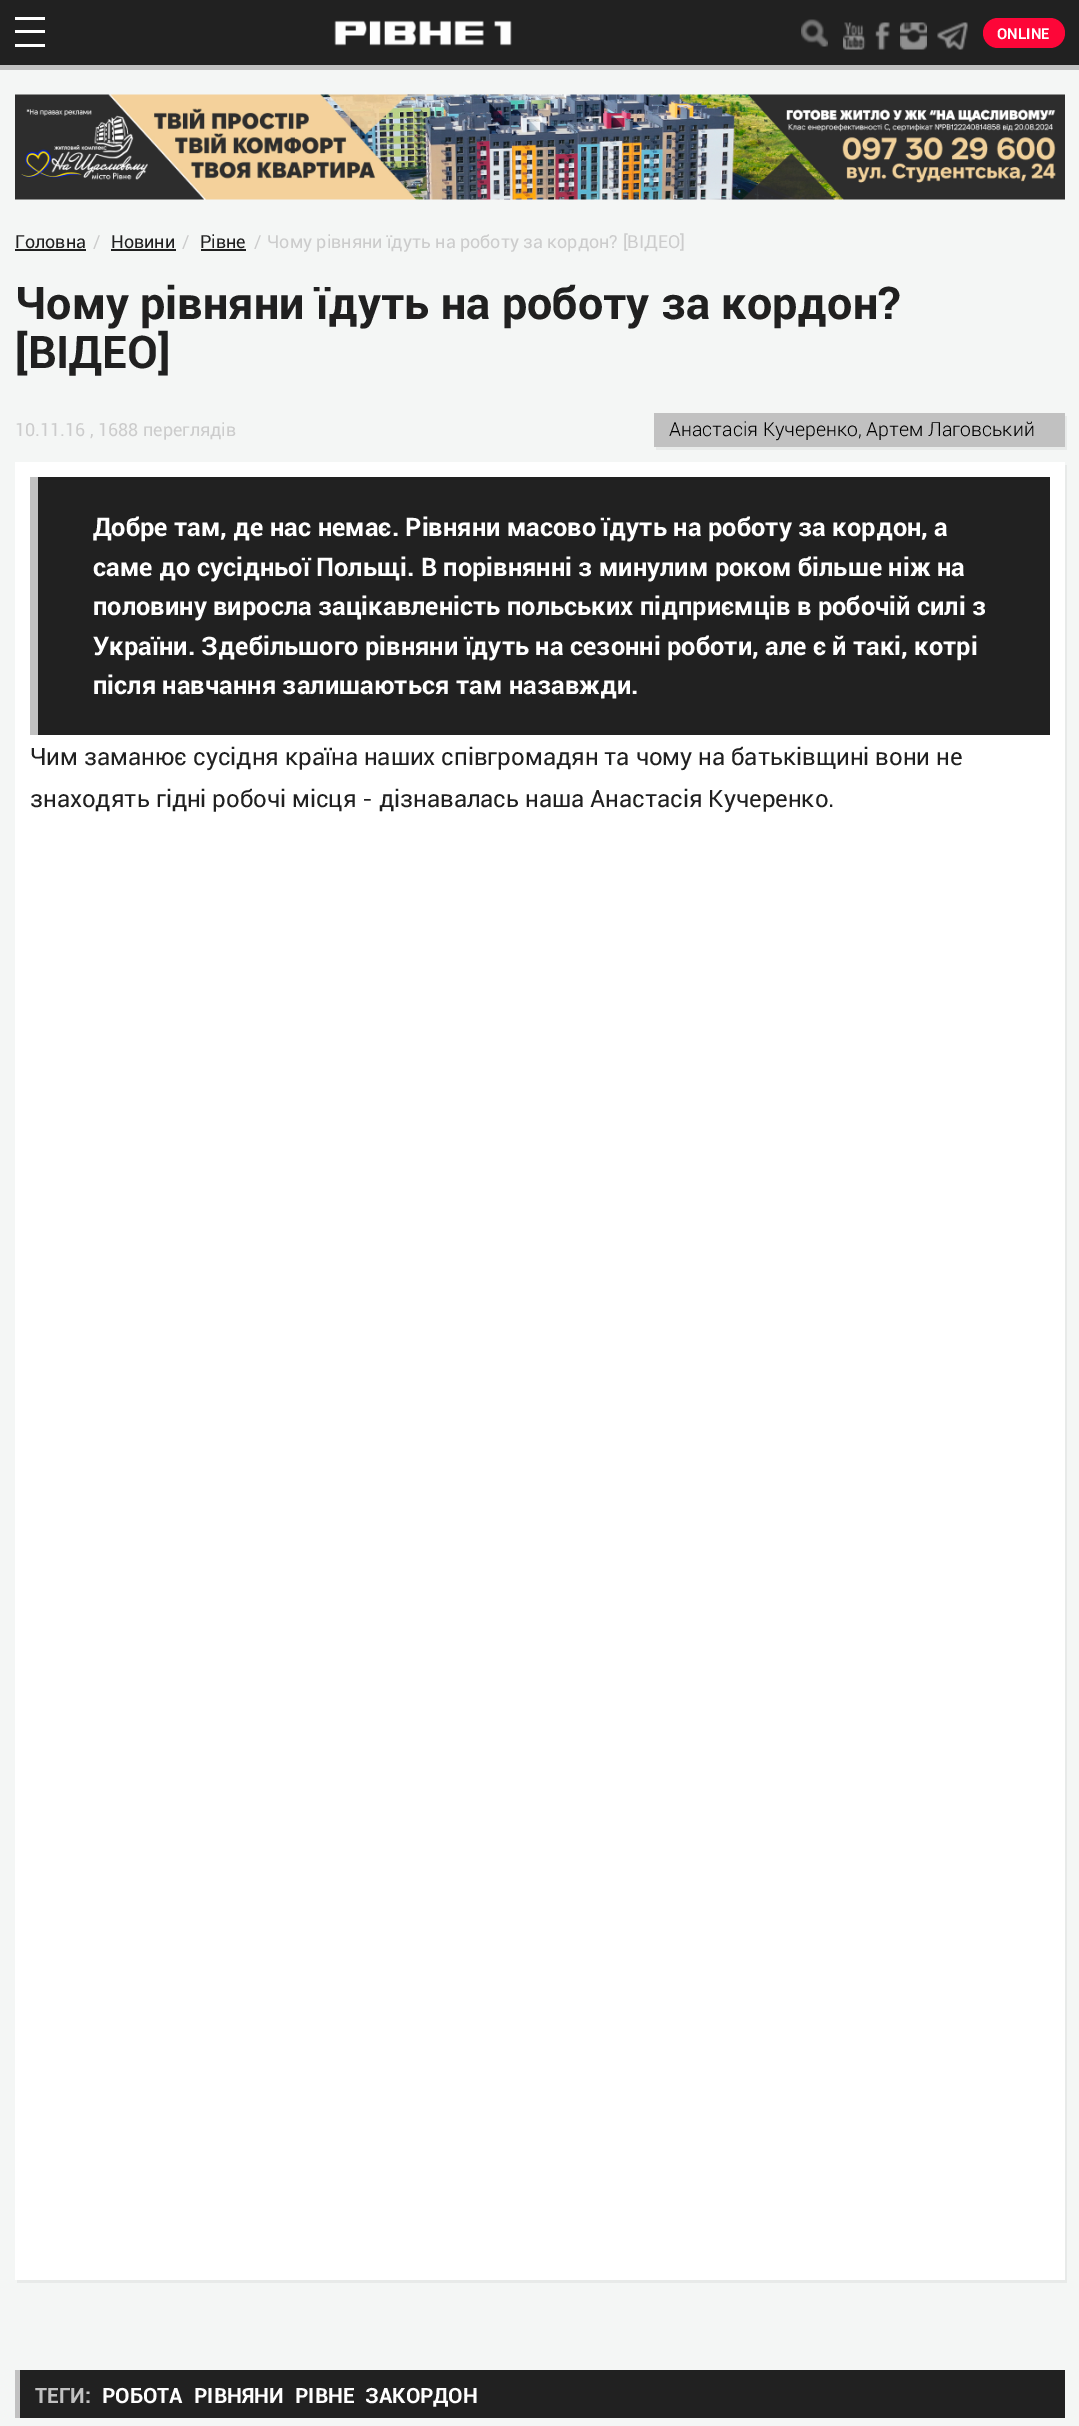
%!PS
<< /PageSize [1079 2426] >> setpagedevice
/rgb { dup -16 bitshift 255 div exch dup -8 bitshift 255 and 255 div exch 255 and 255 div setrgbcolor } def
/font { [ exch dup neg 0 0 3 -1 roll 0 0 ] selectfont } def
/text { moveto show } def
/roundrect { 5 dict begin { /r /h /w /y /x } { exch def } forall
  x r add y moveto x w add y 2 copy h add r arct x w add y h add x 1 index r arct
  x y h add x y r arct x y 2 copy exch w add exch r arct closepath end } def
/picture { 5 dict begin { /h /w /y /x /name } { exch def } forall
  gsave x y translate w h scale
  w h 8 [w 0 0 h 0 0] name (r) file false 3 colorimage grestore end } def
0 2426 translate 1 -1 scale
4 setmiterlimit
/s1 { /Roboto-Bold 15 font 16#FFFFFF rgb } def
/s2 { /Roboto-Regular 18 font 16#202020 rgb } def
/s3 { /Roboto-Regular 18 font 16#CCCCCC rgb } def
/s4 { /Roboto-Bold 45 font 16#202020 rgb } def
/s5 { /Roboto-Light 19.5 font 16#000000 rgb } def
/s6 { /Roboto-Bold 25.5 font 16#FFFFFF rgb } def
/s7 { /Roboto-Regular 24 font 16#202020 rgb } def
/s8 { /Roboto-Bold 21 font 16#C1C1C1 rgb } def
/s9 { /Roboto-Bold 21 font 16#FFFFFF rgb } def
16#F4F6F5 rgb
0 0 1079 2426 rectfill
16#212121 rgb
0 0 1079 65 rectfill
16#C1C1C1 rgb
0 65 1079 5 rectfill
16#FFFFFF rgb
15 17 30 3 rectfill
15 30 30 3 rectfill
15 44 30 3 rectfill
(pic1.raw) 334 20 178 26 picture
(pic2.raw) 801 19 27 28 picture
(pic3.raw) 843 22 23 28 picture
(pic4.raw) 875 22 15 28 picture
(pic5.raw) 900 22 27 28 picture
(pic6.raw) 937 22 31 28 picture
16#FD0638 rgb
983 18 82 30 15 roundrect fill
s1
(ONLINE) 997 39 text
(pic7.raw) 15 94 1050 106 picture
s2
(Головна) 15 248 text
15 249 71 2 rectfill
s3
(/) 93 248 text
s2
(Новини) 111 248 text
111 249 65 2 rectfill
s3
(/) 182 248 text
s2
(Рівне) 200 248 text
201 249 45 2 rectfill
s3
(/) 254 248 text
(Чому рівняни їдуть на роботу за кордон? [ВІДЕО]) 267 248 text
s4
(Чому рівняни їдуть на роботу за кордон?) 15 319 text
([ВІДЕО]) 15 368 text
s3
(10.11.16 , 1688 переглядів) 15 436 text
16#E8EAE9 rgb
656 447 moveto 656 450 lineto 1067 450 lineto 1067 416 lineto 1065 416 lineto 1065 447 lineto closepath fill
16#C1C1C1 rgb
654 413 411 34 rectfill
s5
(Анастасія Кучеренко, Артем Лаговський) 669 436 text
16#E8EAE9 rgb
17 2280 moveto 17 2283 lineto 1067 2283 lineto 1067 465 lineto 1065 465 lineto 1065 2280 lineto closepath fill
16#FFFFFF rgb
15 462 1050 1818 rectfill
16#212121 rgb
38 477 1012 258 rectfill
16#C1C1C1 rgb
30 477 8 258 rectfill
s6
(Добре там, де нас немає. Рівняни масово їдуть на роботу за кордон, а) 93 536 text
(саме до сусідньої Польщі. В порівнянні з минулим роком більше ніж на) 93 576 text
(половину виросла зацікавленість польських підприємців в робочій силі з) 93 615 text
(України. Здебільшого рівняни їдуть на сезонні роботи, але є й такі, котрі) 93 655 text
(після навчання залишаються там назавжди.) 93 694 text
s7
(Чим заманює сусідня країна наших співгромадян та чому на батьківщині вони не) 30 765 text
(знаходять гідні робочі місця - дізнавалась наша Анастасія Кучеренко.) 30 807 text
16#212121 rgb
20 2370 1045 48 rectfill
16#C1C1C1 rgb
15 2370 5 48 rectfill
s8
(ТЕГИ:) 35 2403 text
s9
(РОБОТА) 102 2403 text
(РІВНЯНИ) 194 2403 text
(РІВНЕ) 295 2403 text
(ЗАКОРДОН) 365 2403 text
showpage
